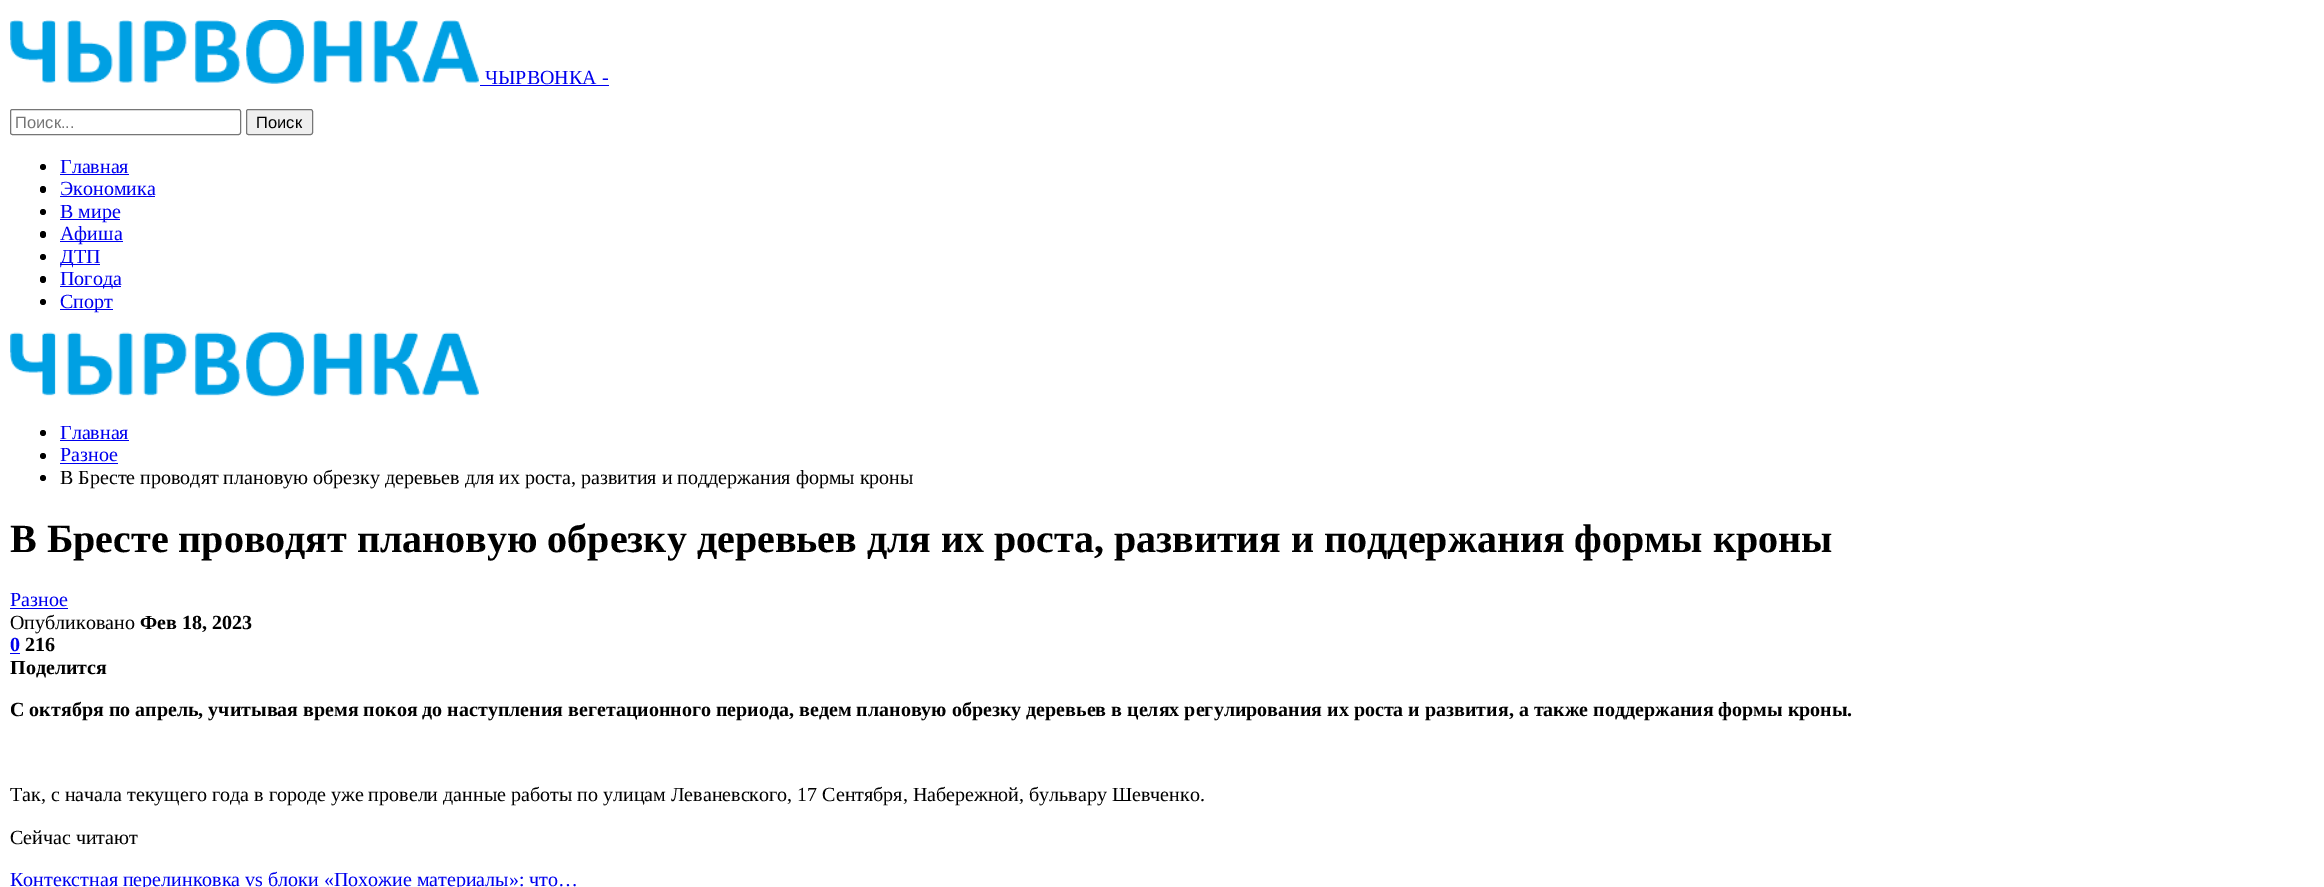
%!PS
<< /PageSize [2324 887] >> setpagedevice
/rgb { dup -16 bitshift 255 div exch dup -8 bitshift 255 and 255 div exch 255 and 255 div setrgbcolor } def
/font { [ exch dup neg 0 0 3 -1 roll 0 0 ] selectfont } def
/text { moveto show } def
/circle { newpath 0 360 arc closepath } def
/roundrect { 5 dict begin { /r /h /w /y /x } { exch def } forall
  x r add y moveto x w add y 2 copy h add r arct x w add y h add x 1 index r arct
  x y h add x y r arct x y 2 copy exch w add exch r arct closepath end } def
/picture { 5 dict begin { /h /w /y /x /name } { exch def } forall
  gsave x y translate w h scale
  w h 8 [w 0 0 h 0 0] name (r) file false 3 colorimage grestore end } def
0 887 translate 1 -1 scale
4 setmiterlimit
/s1 { /LiberationSerif-Regular 20 font 16#0000EE rgb } def
/s2 { /LiberationSans-Regular 16.5 font 16#757575 rgb } def
/s3 { /LiberationSans-Regular 16.5 font 16#000000 rgb } def
/s4 { /LiberationSerif-Regular 20 font 16#000000 rgb } def
/s5 { /LiberationSerif-Bold 40 font 16#000000 rgb } def
/s6 { /LiberationSerif-Bold 20 font 16#000000 rgb } def
/s7 { /LiberationSerif-Bold 20 font 16#0000EE rgb } def
16#FFFFFF rgb
0 0 2324 887 rectfill
(pic1.raw) 10 20 469 64 picture
s1
(ЧЫРВОНКА -) 485 84 text
480 85 129 1 rectfill
16#767676 rgb
10.5 109.5 230 25 2 roundrect stroke
s2
(Поиск...) 15 128 text
16#EFEFEF rgb
246.5 109.5 66 25 2 roundrect gsave fill grestore
16#767676 rgb
stroke
s3
(Поиск) 256 128 text
43 167 3 circle fill
s1
(Главная) 60 173 text
60 174 69 1 rectfill
16#000000 rgb
40 186 6 7 3 roundrect fill
s1
(Экономика) 60 195 text
60 196 95 1 rectfill
16#000000 rgb
43 212 3 circle fill
16#0000EE rgb
60 219 60 1 rectfill
(В мире) 60 218 text
16#000000 rgb
40 231 6 7 3 roundrect fill
16#0000EE rgb
60 241 63 1 rectfill
(Афиша) 60 240 text
16#000000 rgb
43 257 3 circle fill
16#0000EE rgb
60 264 40 1 rectfill
(ДТП) 60 263 text
16#000000 rgb
40 276 6 7 3 roundrect fill
16#0000EE rgb
60 286 61 1 rectfill
(Погода) 60 285 text
16#000000 rgb
43 302 3 circle fill
16#0000EE rgb
60 309 53 1 rectfill
(Спорт) 60 308 text
(pic2.raw) 10 332 469 65 picture
16#000000 rgb
43 433 3 circle fill
s1
(Главная) 60 439 text
60 440 69 1 rectfill
16#000000 rgb
43 456 3 circle fill
s1
(Разное) 60 461 text
60 463 58 1 rectfill
16#000000 rgb
43 478 3 circle fill
(В Бресте проводят плановую обрезку деревьев для их роста, развития и поддержания формы кроны) 60 484 text
s5
(В Бресте проводят плановую обрезку деревьев для их роста, развития и поддержания формы кроны) 10 552 text
s1
(Разное) 10 606 text
10 608 58 1 rectfill
s4
(Опубликовано) 10 629 text
s6
(Фев 18, 2023) 140 629 text
s7
(0) 10 651 text
10 653 10 1 rectfill
s6
(216) 25 651 text
(Поделится) 10 674 text
(С октября по апрель, учитывая время покоя до наступления вегетационного периода, ведем плановую обрезку деревьев в целях регулирования их роста и развития, а также поддержания формы кроны.) 10 716 text
s4
(Так, с начала текущего года в городе уже провели данные работы по улицам Леваневского, 17 Сентября, Набережной, бульвару Шевченко.) 10 801 text
(Сейчас читают) 10 844 text
s1
(Контекстная перелинковка vs блоки «Похожие материалы»: что…) 10 886 text
showpage
